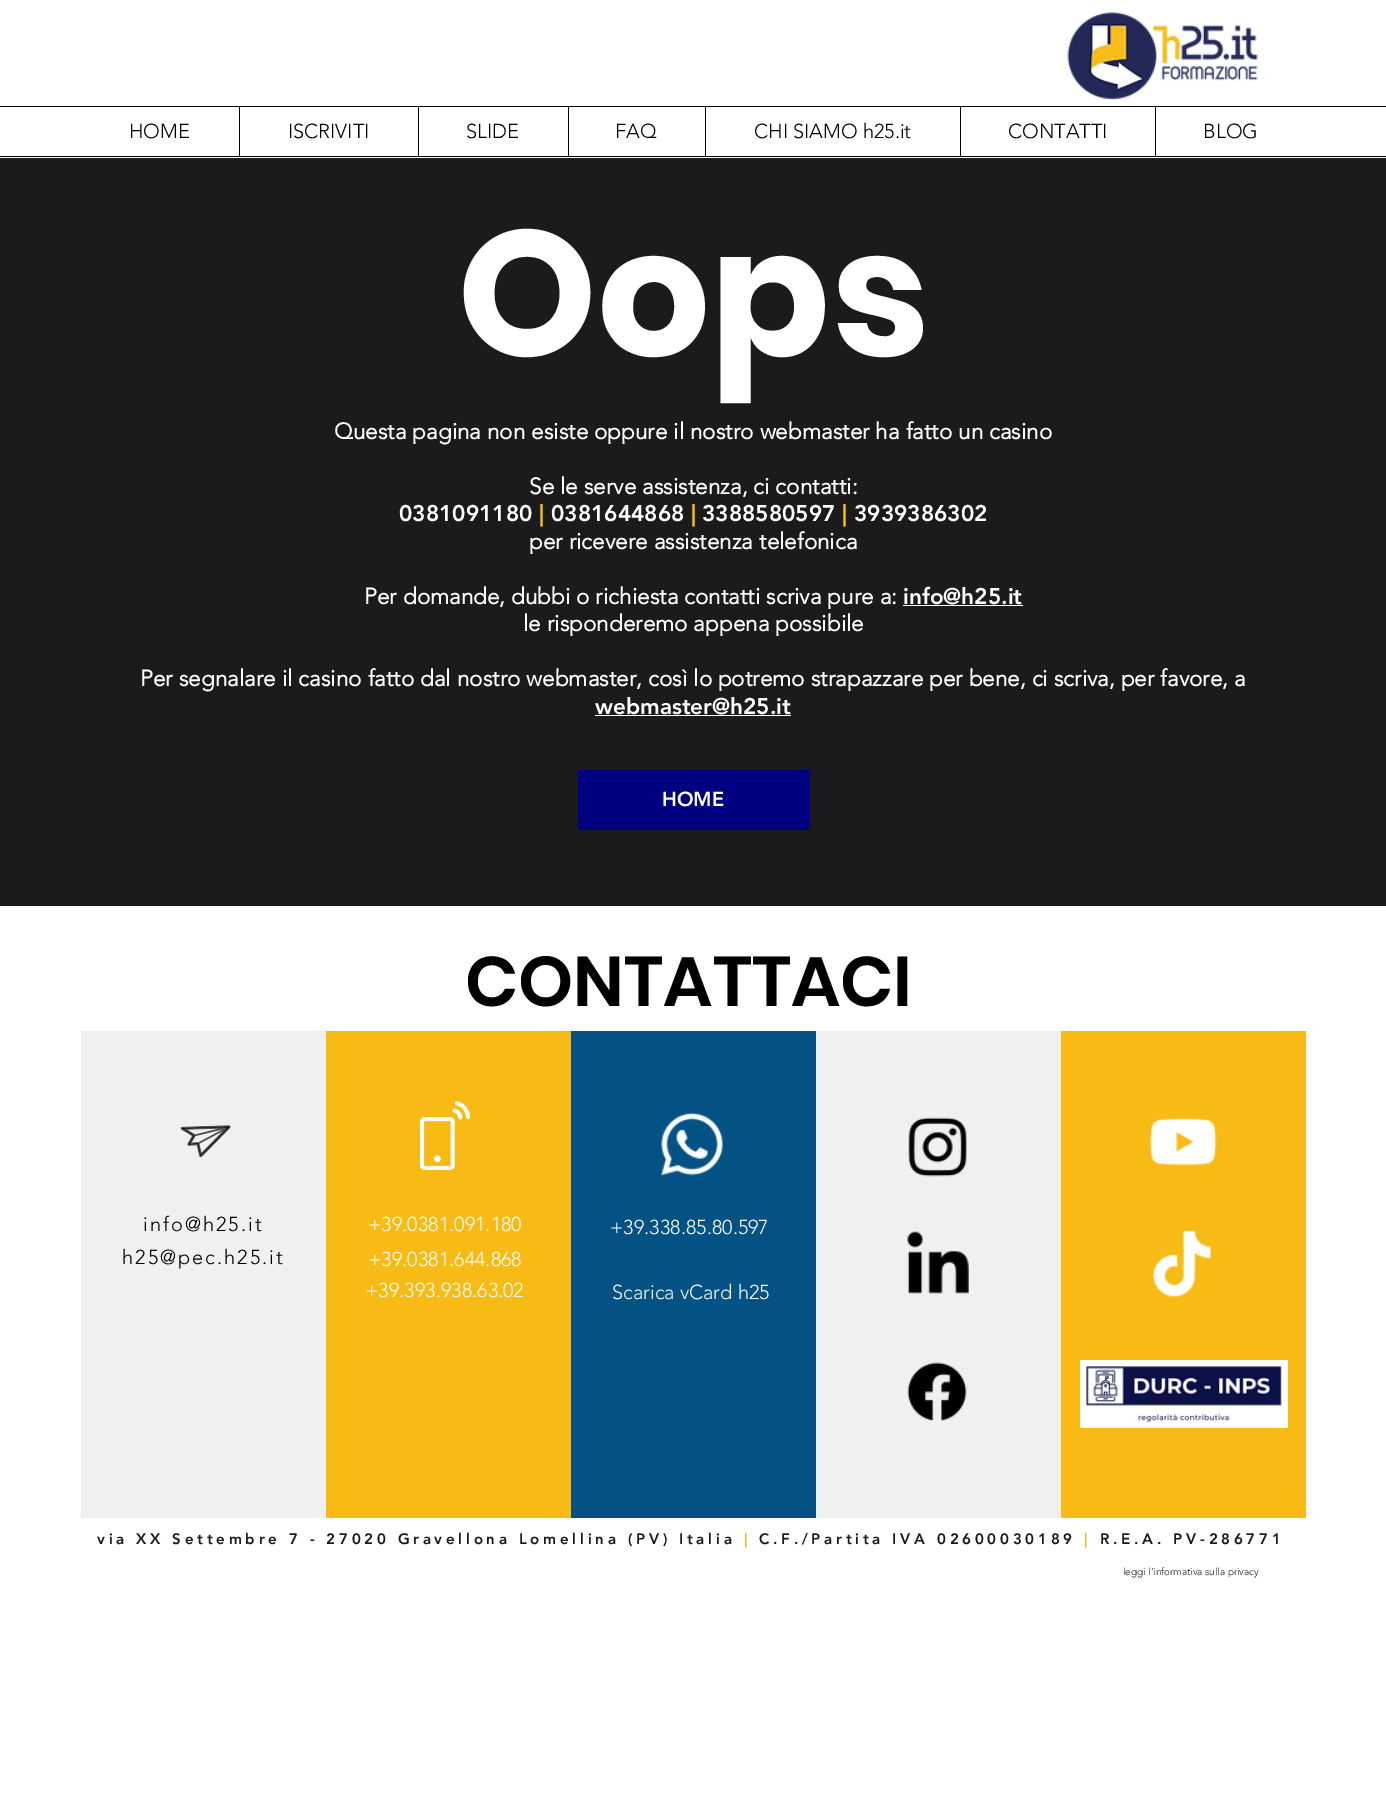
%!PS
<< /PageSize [1386 1798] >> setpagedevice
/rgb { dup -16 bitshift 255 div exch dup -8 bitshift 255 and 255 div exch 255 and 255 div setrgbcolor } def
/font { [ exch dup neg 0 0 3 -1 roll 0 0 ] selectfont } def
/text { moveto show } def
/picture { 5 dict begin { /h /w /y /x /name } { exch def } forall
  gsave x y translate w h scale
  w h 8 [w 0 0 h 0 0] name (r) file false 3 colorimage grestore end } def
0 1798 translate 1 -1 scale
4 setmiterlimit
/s1 { /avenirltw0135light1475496-Light 20 font 16#000000 rgb } def
/s2 { /Poppins-Bold 177.5 font 16#FFFFFF rgb } def
/s3 { /avenirltw0135light1475496-Bold 22.5 font 16#FFFFFF rgb } def
/s4 { /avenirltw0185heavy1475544-Black 22.5 font 16#FFFFFF rgb } def
/s5 { /avenirltw0185heavy1475544-Black 22.5 font 16#F8BB15 rgb } def
/s6 { /avenirltw0185heavy1475544-Black 20 font 16#FFFFFF rgb } def
/s7 { /Poppins-SemiBold 70 font 16#000000 rgb } def
/s8 { /avenirltw0135light1475496-Light 20 font 16#FFFFFF rgb } def
/s9 { /avenirltw0135light1475496-Light 10 font 16#1B1B1E rgb } def
16#FFFFFF rgb
0 0 1386 1798 rectfill
(pic1.raw) 1067 12 191 88 picture
16#000000 rgb
239 106 1 50 rectfill
418 106 1 50 rectfill
568 106 1 50 rectfill
705 106 1 50 rectfill
960 106 1 50 rectfill
1155 106 1 50 rectfill
0 106 1386 1 rectfill
s1
(HOME) 129 138 text
(ISCRIVITI) 288 138 text
(SLIDE) 466 138 text
(FAQ) 615 138 text
(CHI SIAMO h25.it) 754 138 text
(CONTATTI) 1008 138 text
(BLOG) 1203 138 text
0 156 1386 1 rectfill
16#1B1B1E rgb
0 158 1386 748 rectfill
s2
(Oops) 457 356 text
s3
(Questa pagina non esiste oppure il nostro webmaster ha fatto un casino) 334 439 text
(Se le serve assistenza, ci contatti:) 529 494 text
s4
(0381091180) 399 521 text
s5
(|) 539 521 text
s4
(0381644868) 551 521 text
s5
(|) 691 521 text
s4
(3388580597) 702 521 text
s5
(|) 842 521 text
s4
(3939386302) 854 521 text
s3
(per ricevere assistenza telefonica) 529 549 text
(Per domande, dubbi o richiesta contatti scriva pure a:) 364 604 text
s4
(info@h25.it) 903 604 text
903 605 120 1 rectfill
s3
(le risponderemo appena possibile) 523 631 text
(Per segnalare il casino fatto dal nostro webmaster, così lo potremo strapazzare per bene, ci scriva, per favore, a) 140 686 text
s4
(webmaster@h25.it) 595 714 text
595 715 196 1 rectfill
16#010080 rgb
578 770 232 60 rectfill
s6
(HOME) 662 806 text
s7
(CONTATTACI) 465 1006 text
16#F0F0F0 rgb
81 1031 245 487 rectfill
(pic2.raw) 180 1125 51 33 picture
/avenirltw0135light1475496-Light 20 font
16#000000 rgb
143 1231 moveto 2 0 (info@h25.it) ashow
122 1264 moveto 2 0 (h25@pec.h25.it) ashow
16#F8BB15 rgb
326 1031 245 487 rectfill
(pic3.raw) 420 1101 50 69 picture
s8
(+39.0381.091.180) 368 1231 text
(+39.0381.644.868) 368 1266 text
(+39.393.938.63.02) 365 1297 text
16#045184 rgb
571 1031 245 487 rectfill
(pic4.raw) 661 1112 62 64 picture
s8
(+39.338.85.80.597) 610 1234 text
(Scarica vCard h25) 612 1299 text
16#F0F0F0 rgb
816 1031 245 487 rectfill
(pic5.raw) 908 1117 59 60 picture
(pic6.raw) 907 1231 62 63 picture
(pic7.raw) 907 1362 60 59 picture
16#F8BB15 rgb
1061 1031 245 487 rectfill
(pic8.raw) 1149 1118 68 48 picture
(pic9.raw) 1152 1230 60 68 picture
16#FFFFFF rgb
1080 1360 208 68 rectfill
(pic10.raw) 1086 1366 196 57 picture
/avenirltw0185heavy1475544-Black 15 font
16#1B1B1E rgb
97 1544 moveto 3.75 0 (via XX Settembre 7 - 27020 Gravellona Lomellina \(PV\) Italia) ashow
16#F8BB15 rgb
744 1544 moveto 3.75 0 (|) ashow
16#1B1B1E rgb
759 1544 moveto 3.75 0 (C.F./Partita IVA 02600030189) ashow
16#F8BB15 rgb
1084 1544 moveto 3.75 0 (|) ashow
16#1B1B1E rgb
1100 1544 moveto 3.75 0 (R.E.A. PV-286771) ashow
s9
(leggi l'informativa sulla privacy) 1123 1575 text
showpage
